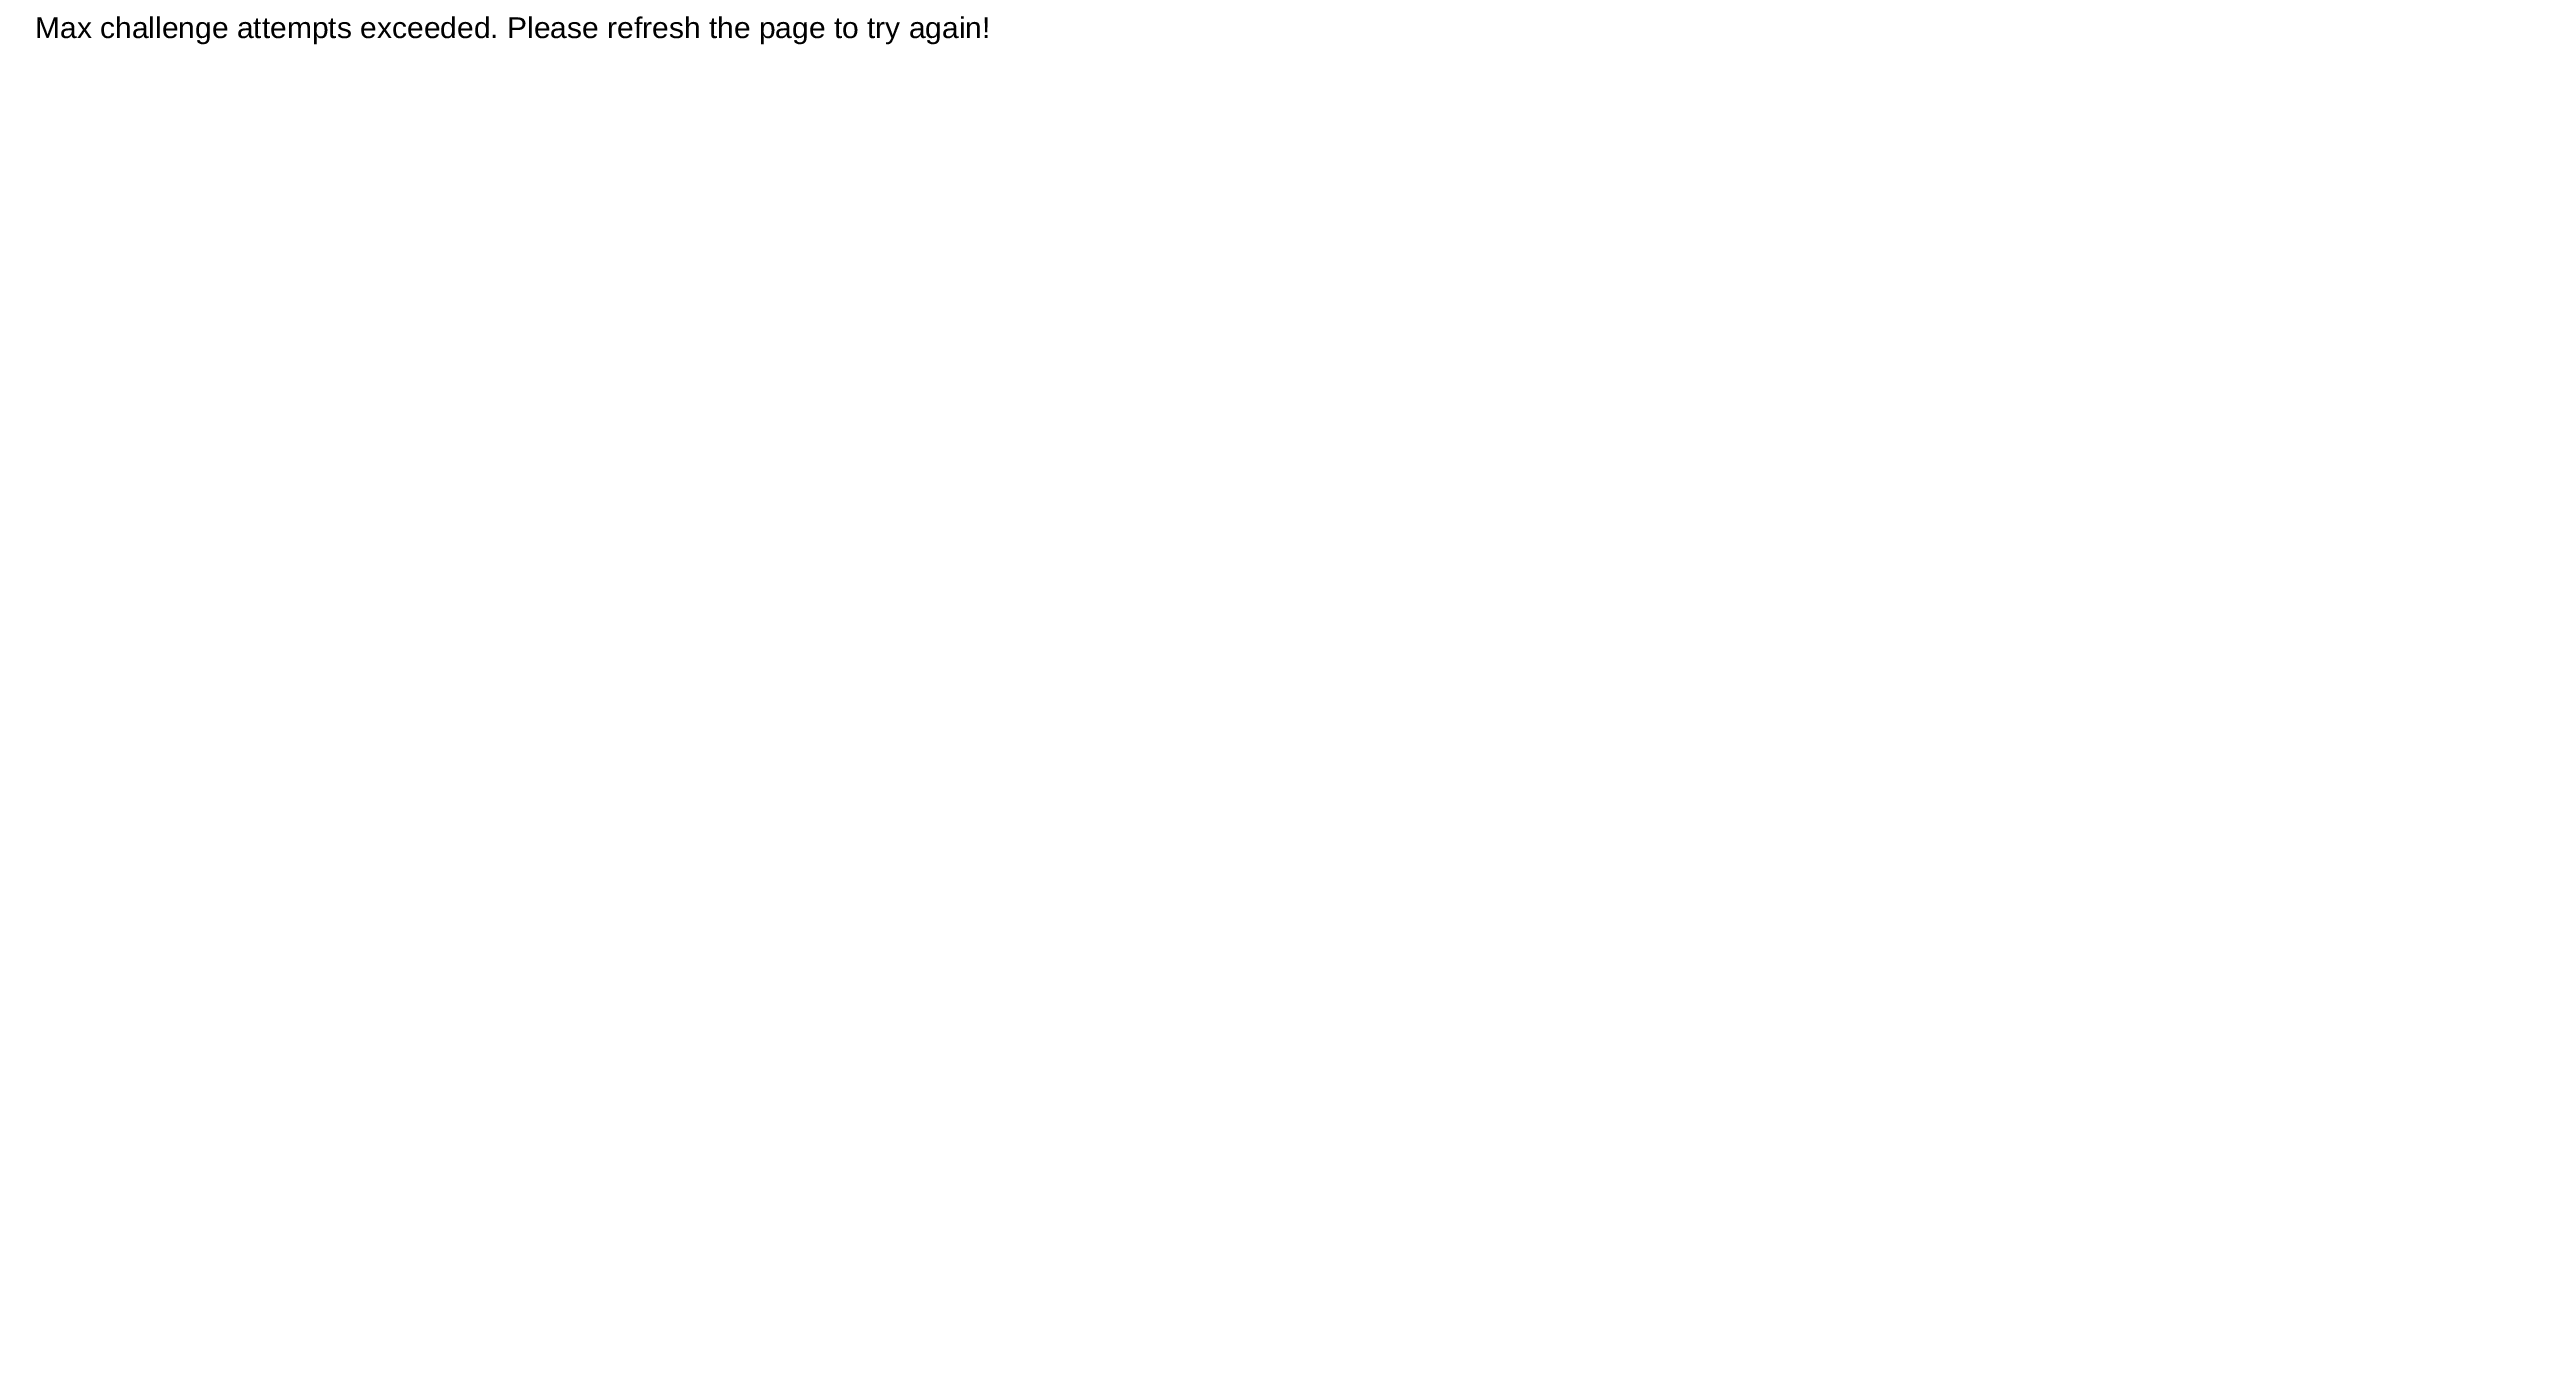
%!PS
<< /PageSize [2550 1397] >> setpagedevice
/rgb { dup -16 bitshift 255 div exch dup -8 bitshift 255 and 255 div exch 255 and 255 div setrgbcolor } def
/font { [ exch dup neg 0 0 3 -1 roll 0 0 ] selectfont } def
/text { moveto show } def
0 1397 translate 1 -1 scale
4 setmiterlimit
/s1 { /LiberationSans-Regular 30 font 16#000000 rgb } def
16#FFFFFF rgb
0 0 2550 1397 rectfill
s1
(Max challenge attempts exceeded. Please refresh the page to try again!) 35 38 text
showpage
